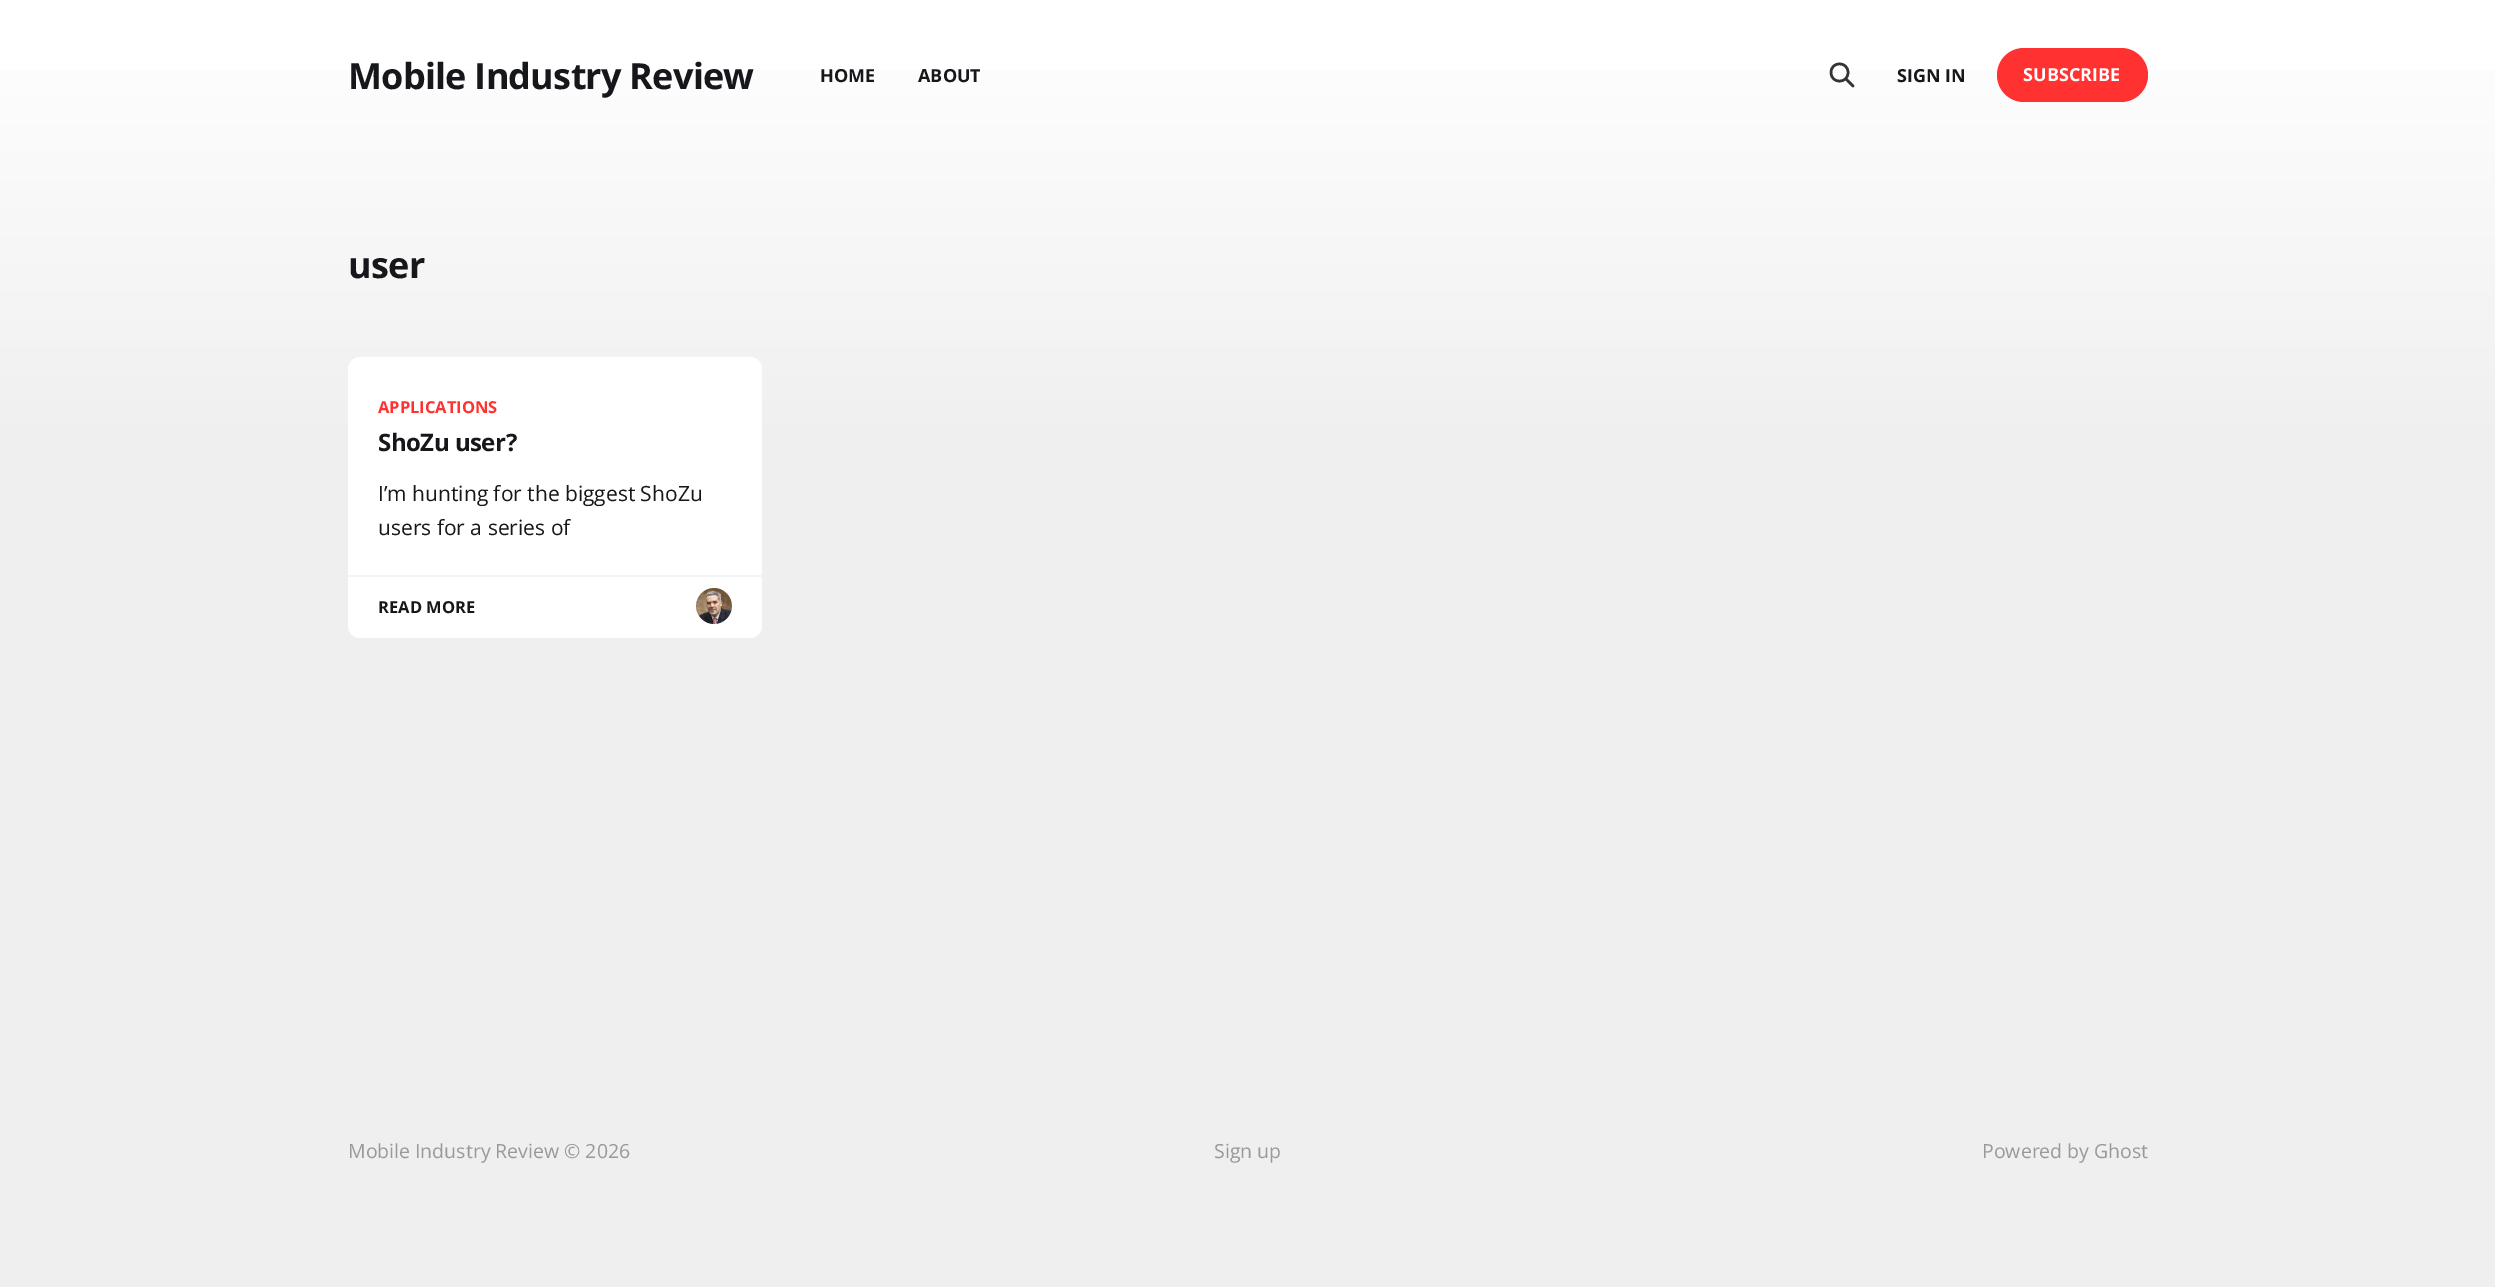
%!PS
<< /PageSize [2495 1287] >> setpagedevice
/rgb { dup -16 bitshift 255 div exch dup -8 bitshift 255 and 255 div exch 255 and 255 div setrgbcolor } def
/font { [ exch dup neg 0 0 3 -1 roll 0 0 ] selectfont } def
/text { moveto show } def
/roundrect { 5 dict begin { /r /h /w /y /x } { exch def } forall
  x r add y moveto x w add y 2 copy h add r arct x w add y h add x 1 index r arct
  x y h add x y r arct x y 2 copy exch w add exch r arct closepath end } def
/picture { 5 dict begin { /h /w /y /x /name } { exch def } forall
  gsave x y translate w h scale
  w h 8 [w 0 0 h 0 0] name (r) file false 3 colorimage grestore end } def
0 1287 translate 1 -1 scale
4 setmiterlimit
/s1 { /OpenSans-Bold 18 font 16#15171A rgb } def
/s2 { /OpenSans-Bold 18 font 16#FFFFFF rgb } def
/s3 { /OpenSans-Bold 16.5 font 16#FF3131 rgb } def
/s4 { /OpenSans-Regular 21 font 16#15171A rgb } def
/s5 { /OpenSans-Bold 16.5 font 16#15171A rgb } def
/s6 { /OpenSans-Regular 19.5 font 16#999999 rgb } def
16#FFFFFF rgb
0 0 2495 1287 rectfill
gsave 0 70 moveto 2495 70 lineto 2495 1287 lineto 0 1287 lineto closepath clip newpath
<< /ShadingType 2 /ColorSpace /DeviceRGB /Coords [1248 1287 1248 0] /Extend [true true] /Function << /FunctionType 3 /Domain [0 1] /Functions [<< /FunctionType 2 /Domain [0 1] /C0 [0.937 0.937 0.937] /C1 [0.937 0.937 0.937] /N 1 >> << /FunctionType 2 /Domain [0 1] /C0 [0.937 0.937 0.937] /C1 [1 1 1] /N 1 >>] /Bounds [0.65] /Encode [0 1 0 1] >> >> shfill grestore
/OpenSans-Bold 36 font
16#15171A rgb
348 89 moveto -0.75 0 (Mobile Industry Review) ashow
s1
(HOME) 820 82 text
(ABOUT) 918 82 text
16#333333 rgb
2.5 setlinewidth
1 setlinecap
1 setlinejoin
1853 86 moveto 1846 79 lineto 1848 72.5 moveto 1848 84 1831 84 1831 72.5 curveto 1831 61 1848 61 1848 72.5 curveto closepath stroke
s1
(SIGN IN) 1897 82 text
16#FF3131 rgb
1997 48 151 54 27 roundrect fill
s2
(SUBSCRIBE) 2023 81 text
/OpenSans-Bold 36 font
16#15171A rgb
348 278 moveto -0.75 0 (user) ashow
16#FFFFFF rgb
360 357 moveto 750 357 lineto 756.5 357 762 362.5 762 369 curveto 762 575 lineto 348 575 lineto 348 369 lineto 348 362.5 353.5 357 360 357 curveto closepath fill
s3
(APPLICATIONS) 378 413 text
/OpenSans-Bold 24 font
16#15171A rgb
378 451 moveto -0.5 0 (ShoZu user?) ashow
s4
(I’m hunting for the biggest ShoZu) 378 501 text
(users for a series of) 378 535 text
16#FFFFFF rgb
348 575 moveto 762 575 lineto 762 626 lineto 762 632.5 756.5 638 750 638 curveto 360 638 lineto 353.5 638 348 632.5 348 626 curveto closepath fill
16#F4F4F4 rgb
348 575 414 2 rectfill
s5
(READ MORE) 378 613 text
(pic1.raw) 696 588 36 36 picture
s6
(Mobile Industry Review © 2026) 348 1158 text
(Sign up) 1214 1158 text
(Powered by Ghost) 1982 1158 text
showpage
